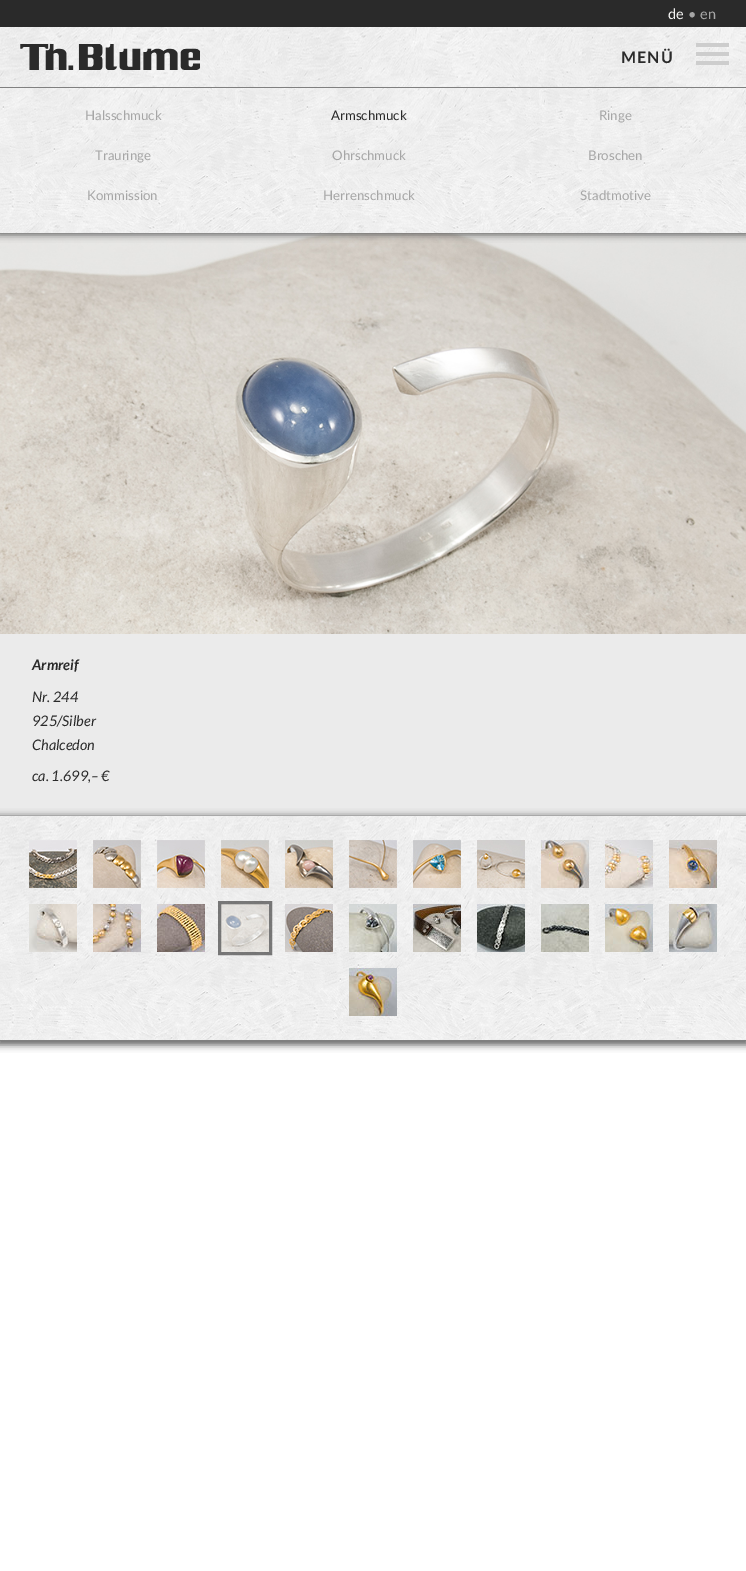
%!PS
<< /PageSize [746 1571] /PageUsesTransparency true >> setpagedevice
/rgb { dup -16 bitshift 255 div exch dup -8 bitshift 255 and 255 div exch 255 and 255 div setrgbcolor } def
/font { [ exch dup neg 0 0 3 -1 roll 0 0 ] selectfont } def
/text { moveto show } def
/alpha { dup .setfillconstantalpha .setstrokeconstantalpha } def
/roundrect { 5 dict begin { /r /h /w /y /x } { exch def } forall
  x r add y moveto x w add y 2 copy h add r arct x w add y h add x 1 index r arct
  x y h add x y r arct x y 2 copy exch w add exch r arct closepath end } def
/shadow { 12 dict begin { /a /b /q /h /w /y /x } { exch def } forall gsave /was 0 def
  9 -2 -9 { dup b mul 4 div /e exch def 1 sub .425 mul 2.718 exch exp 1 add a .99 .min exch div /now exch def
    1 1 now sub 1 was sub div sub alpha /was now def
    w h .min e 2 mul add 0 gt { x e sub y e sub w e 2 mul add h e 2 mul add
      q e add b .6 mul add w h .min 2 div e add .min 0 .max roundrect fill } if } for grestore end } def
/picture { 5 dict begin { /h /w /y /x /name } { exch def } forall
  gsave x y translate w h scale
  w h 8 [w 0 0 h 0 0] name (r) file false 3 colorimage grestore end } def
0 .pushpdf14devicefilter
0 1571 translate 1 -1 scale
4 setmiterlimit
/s1 { /Lato-Regular 14.5 font 16#F3F3F2 rgb } def
/s2 { /Lato-Regular 14.5 font 16#A6A6A6 rgb } def
/s3 { /Lato-Regular 13.25 font 16#A6A6A6 rgb } def
/s4 { /Lato-Regular 13.25 font 16#2A2A2A rgb } def
/s5 { /Lato-BoldItalic 14.5 font 16#2A2A2A rgb } def
/s6 { /Lato-Italic 14.5 font 16#2A2A2A rgb } def
16#FFFFFF rgb
0 0 746 1571 rectfill
(pic4.raw) 0 233 746 401 picture
16#666666 rgb
-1 0 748 235 0 3.5 1 shadow
(pic1.raw) 0 88 746 145 picture
16#2A2A2A rgb
0 0 746 27 rectfill
s1
(de) 668 19 text
s2
(• en) 688 19 text
(pic3.raw) 0 27 746 60 picture
(pic2.raw) 20 44 180 26 picture
16#808080 rgb
0 87 746 1 rectfill
/Lato-Bold 16 font
16#2A2A2A rgb
621 63 moveto 1 0 (MENÜ) ashow
16#CDCDCD rgb
696 43 33 4 rectfill
696 52 33 4 rectfill
696 61 33 4 rectfill
s3
(Halsschmuck) 85 120 text
s4
(Armschmuck) 331 120 text
s3
(Ringe) 599 120 text
(Trauringe) 95 160 text
(Ohrschmuck) 332 160 text
(Broschen) 588 160 text
(Kommission) 87 200 text
(Herrenschmuck) 323 200 text
(Stadtmotive) 580 200 text
16#EBEBEB rgb
0 634 746 182 rectfill
s5
(Armreif) 32 670 text
s6
(Nr. 244) 32 702 text
(925/Silber) 32 726 text
(Chalcedon) 32 750 text
(ca. 1.699,– €) 32 781 text
16#666666 rgb
-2 816 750 229 0 3.5 1 shadow
(pic5.raw) 0 816 746 224 picture
16#808080 rgb
0 1040 746 1 rectfill
(pic6.raw) 29 840 48 48 picture
(pic7.raw) 93 840 48 48 picture
(pic8.raw) 157 840 48 48 picture
(pic9.raw) 221 840 48 48 picture
(pic10.raw) 285 840 48 48 picture
(pic11.raw) 349 840 48 48 picture
(pic12.raw) 413 840 48 48 picture
(pic13.raw) 477 840 48 48 picture
(pic14.raw) 541 840 48 48 picture
(pic15.raw) 605 840 48 48 picture
(pic16.raw) 669 840 48 48 picture
(pic17.raw) 29 904 48 48 picture
(pic18.raw) 93 904 48 48 picture
(pic19.raw) 157 904 48 48 picture
(pic20.raw) 221 904 48 48 picture
0.5 alpha
16#000000 rgb
3 setlinewidth
219.5 902.5 51 51 rectstroke
1 alpha
(pic21.raw) 285 904 48 48 picture
(pic22.raw) 349 904 48 48 picture
(pic23.raw) 413 904 48 48 picture
(pic24.raw) 477 904 48 48 picture
(pic25.raw) 541 904 48 48 picture
(pic26.raw) 605 904 48 48 picture
(pic27.raw) 669 904 48 48 picture
(pic28.raw) 349 968 48 48 picture
.poppdf14devicefilter showpage
